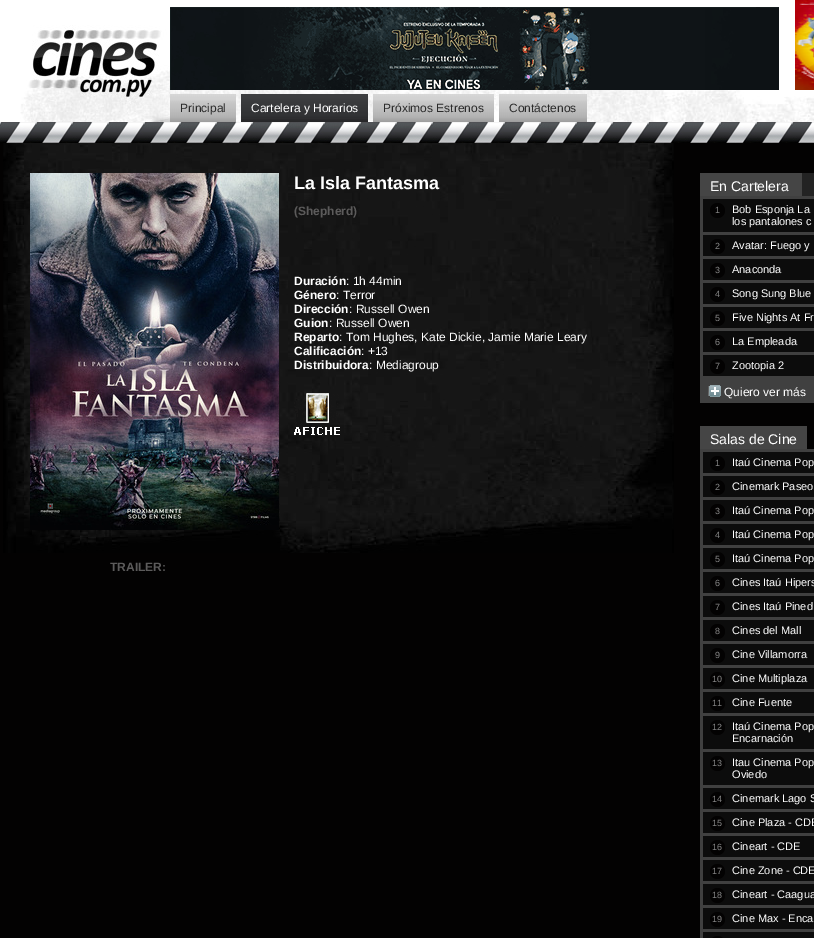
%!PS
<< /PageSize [814 938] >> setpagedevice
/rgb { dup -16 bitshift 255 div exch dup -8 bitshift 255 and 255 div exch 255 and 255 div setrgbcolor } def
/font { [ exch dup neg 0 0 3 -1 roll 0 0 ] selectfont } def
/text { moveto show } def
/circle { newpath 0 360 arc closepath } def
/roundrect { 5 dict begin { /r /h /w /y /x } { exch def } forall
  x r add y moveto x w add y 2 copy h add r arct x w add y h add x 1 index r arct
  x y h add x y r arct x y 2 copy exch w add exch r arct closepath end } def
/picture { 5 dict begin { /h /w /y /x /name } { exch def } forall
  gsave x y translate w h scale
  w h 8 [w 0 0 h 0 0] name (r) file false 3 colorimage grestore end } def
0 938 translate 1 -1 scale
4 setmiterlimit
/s1 { /LiberationSans-Regular 12 font 16#2B2B2B rgb } def
/s2 { /LiberationSans-Regular 12 font 16#FFFFFF rgb } def
/s3 { /LiberationSans-Bold 18 font 16#FFFFFF rgb } def
/s4 { /LiberationSans-Bold 12 font 16#5C5B5B rgb } def
/s5 { /LiberationSans-Bold 12 font 16#FFFFFF rgb } def
/s6 { /LiberationSans-Regular 14 font 16#FFFFFF rgb } def
/s7 { /LiberationSans-Regular 9 font 16#848484 rgb } def
/s8 { /LiberationSans-Regular 11 font 16#FFFFFF rgb } def
16#030202 rgb
0 0 814 938 rectfill
16#FFFFFF rgb
0 0 795 122 rectfill
(pic1.raw) 0 122 814 21 picture
(pic2.raw) 20 63 794 59 picture
(pic3.raw) 26 25 144 97 picture
(pic4.raw) 170 7 609 83 picture
(pic5.raw) 795 0 19 90 picture
(pic6.raw) 170 94 66 28 picture
s1
(Principal) 180 112 text
(pic7.raw) 241 94 127 28 picture
s2
(Cartelera y Horarios) 251 112 text
(pic8.raw) 373 94 121 28 picture
s1
(Próximos Estrenos) 383 112 text
(pic9.raw) 499 94 88 28 picture
(Contáctenos) 509 112 text
(pic10.raw) 3 143 671 410 picture
(pic11.raw) 30 173 249 357 picture
s3
(La Isla Fantasma) 294 189 text
s4
(\(Shepherd\)) 294 215 text
s5
(Duración) 294 285 text
s2
(: 1h 44min) 346 285 text
s5
(Género) 294 299 text
s2
(: Terror) 336 299 text
s5
(Dirección) 294 313 text
s2
(: Russell Owen) 349 313 text
s5
(Guion) 294 327 text
s2
(: Russell Owen) 329 327 text
s5
(Reparto) 294 341 text
s2
(: Tom Hughes, Kate Dickie, Jamie Marie Leary) 339 341 text
s5
(Calificación) 294 355 text
s2
(: +13) 361 355 text
s5
(Distribuidora) 294 369 text
s2
(: Mediagroup) 369 369 text
(pic12.raw) 294 393 46 43 picture
s4
(TRAILER:) 110 571 text
16#454545 rgb
700 173 102 23 rectfill
s6
(En Cartelera) 710 191 text
16#232323 rgb
802 173 12 23 rectfill
16#404040 rgb
700 196 114 207 rectfill
16#0C0C0C rgb
703 199 111 33 rectfill
16#030202 rgb
717.5 210.5 7.5 circle fill
s7
(1) 715 213 text
s8
(Bob Esponja La) 732 213 text
(los pantalones c) 732 225 text
16#0C0C0C rgb
703 235 111 21 rectfill
16#030202 rgb
717.5 246.5 7.5 circle fill
s7
(2) 715 249 text
s8
(Avatar: Fuego y) 732 249 text
16#0C0C0C rgb
703 259 111 21 rectfill
16#030202 rgb
717.5 270.5 7.5 circle fill
s7
(3) 715 273 text
s8
(Anaconda) 732 273 text
16#0C0C0C rgb
703 283 111 21 rectfill
16#030202 rgb
717.5 294.5 7.5 circle fill
s7
(4) 715 297 text
s8
(Song Sung Blue) 732 297 text
16#0C0C0C rgb
703 307 111 21 rectfill
16#030202 rgb
717.5 318.5 7.5 circle fill
s7
(5) 715 321 text
s8
(Five Nights At Fr) 732 321 text
16#0C0C0C rgb
703 331 111 21 rectfill
16#030202 rgb
717.5 342.5 7.5 circle fill
s7
(6) 715 345 text
s8
(La Empleada) 732 345 text
16#0C0C0C rgb
703 355 111 21 rectfill
16#030202 rgb
717.5 366.5 7.5 circle fill
s7
(7) 715 369 text
s8
(Zootopia 2) 732 369 text
(pic13.raw) 708 385 13 12 picture
s2
(Quiero ver más) 724 396 text
16#454545 rgb
700 426 107 23 rectfill
s6
(Salas de Cine) 710 444 text
16#404040 rgb
700 449 114 489 rectfill
16#0C0C0C rgb
703 452 111 21 rectfill
16#030202 rgb
717.5 463.5 7.5 circle fill
s7
(1) 715 466 text
s8
(Itaú Cinema Pop) 732 466 text
16#0C0C0C rgb
703 476 111 21 rectfill
16#030202 rgb
717.5 487.5 7.5 circle fill
s7
(2) 715 490 text
s8
(Cinemark Paseo) 732 490 text
16#0C0C0C rgb
703 500 111 21 rectfill
16#030202 rgb
717.5 511.5 7.5 circle fill
s7
(3) 715 514 text
s8
(Itaú Cinema Pop) 732 514 text
16#0C0C0C rgb
703 524 111 21 rectfill
16#030202 rgb
717.5 535.5 7.5 circle fill
s7
(4) 715 538 text
s8
(Itaú Cinema Pop) 732 538 text
16#0C0C0C rgb
703 548 111 21 rectfill
16#030202 rgb
717.5 559.5 7.5 circle fill
s7
(5) 715 562 text
s8
(Itaú Cinema Pop) 732 562 text
16#0C0C0C rgb
703 572 111 21 rectfill
16#030202 rgb
717.5 583.5 7.5 circle fill
s7
(6) 715 586 text
s8
(Cines Itaú Hipers) 732 586 text
16#0C0C0C rgb
703 596 111 21 rectfill
16#030202 rgb
717.5 607.5 7.5 circle fill
s7
(7) 715 610 text
s8
(Cines Itaú Pined) 732 610 text
16#0C0C0C rgb
703 620 111 21 rectfill
16#030202 rgb
717.5 631.5 7.5 circle fill
s7
(8) 715 634 text
s8
(Cines del Mall) 732 634 text
16#0C0C0C rgb
703 644 111 21 rectfill
16#030202 rgb
717.5 655.5 7.5 circle fill
s7
(9) 715 658 text
s8
(Cine Villamorra) 732 658 text
16#0C0C0C rgb
703 668 111 21 rectfill
16#030202 rgb
717.5 679.5 7.5 circle fill
s7
(10) 712 682 text
s8
(Cine Multiplaza) 732 682 text
16#0C0C0C rgb
703 692 111 21 rectfill
16#030202 rgb
717.5 703.5 7.5 circle fill
s7
(11) 712 706 text
s8
(Cine Fuente) 732 706 text
16#0C0C0C rgb
703 716 111 33 rectfill
16#030202 rgb
717.5 727.5 7.5 circle fill
s7
(12) 712 730 text
s8
(Itaú Cinema Pop) 732 730 text
(Encarnación) 732 742 text
16#0C0C0C rgb
703 752 111 33 rectfill
16#030202 rgb
717.5 763.5 7.5 circle fill
s7
(13) 712 766 text
s8
(Itau Cinema Pop) 732 766 text
(Oviedo) 732 778 text
16#0C0C0C rgb
703 788 111 21 rectfill
16#030202 rgb
717.5 799.5 7.5 circle fill
s7
(14) 712 802 text
s8
(Cinemark Lago S) 732 802 text
16#0C0C0C rgb
703 812 111 21 rectfill
16#030202 rgb
717.5 823.5 7.5 circle fill
s7
(15) 712 826 text
s8
(Cine Plaza - CDE) 732 826 text
16#0C0C0C rgb
703 836 111 21 rectfill
16#030202 rgb
717.5 847.5 7.5 circle fill
s7
(16) 712 850 text
s8
(Cineart - CDE) 732 850 text
16#0C0C0C rgb
703 860 111 21 rectfill
16#030202 rgb
717.5 871.5 7.5 circle fill
s7
(17) 712 874 text
s8
(Cine Zone - CDE) 732 874 text
16#0C0C0C rgb
703 884 111 21 rectfill
16#030202 rgb
717.5 895.5 7.5 circle fill
s7
(18) 712 898 text
s8
(Cineart - Caagua) 732 898 text
16#0C0C0C rgb
703 908 111 21 rectfill
16#030202 rgb
717.5 919.5 7.5 circle fill
s7
(19) 712 922 text
s8
(Cine Max - Enca) 732 922 text
16#0C0C0C rgb
703 932 111 6 rectfill
16#030202 rgb
710 936 15 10 7.5 roundrect fill
showpage
